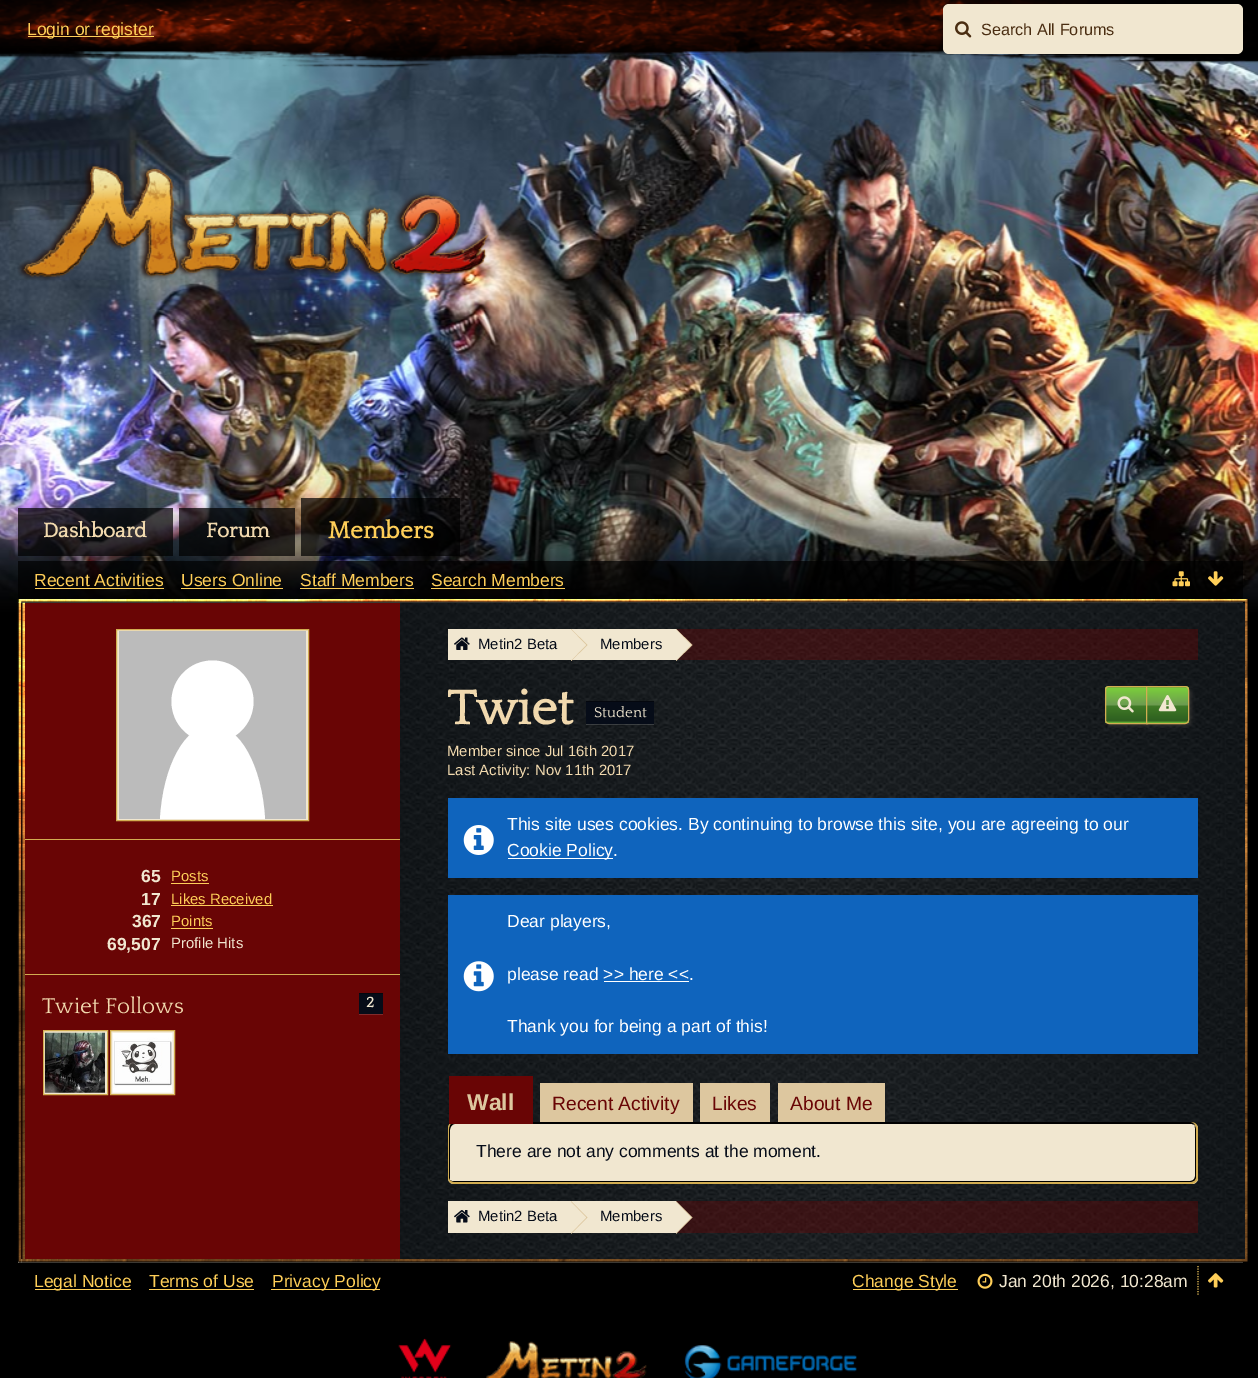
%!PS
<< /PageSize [1258 1378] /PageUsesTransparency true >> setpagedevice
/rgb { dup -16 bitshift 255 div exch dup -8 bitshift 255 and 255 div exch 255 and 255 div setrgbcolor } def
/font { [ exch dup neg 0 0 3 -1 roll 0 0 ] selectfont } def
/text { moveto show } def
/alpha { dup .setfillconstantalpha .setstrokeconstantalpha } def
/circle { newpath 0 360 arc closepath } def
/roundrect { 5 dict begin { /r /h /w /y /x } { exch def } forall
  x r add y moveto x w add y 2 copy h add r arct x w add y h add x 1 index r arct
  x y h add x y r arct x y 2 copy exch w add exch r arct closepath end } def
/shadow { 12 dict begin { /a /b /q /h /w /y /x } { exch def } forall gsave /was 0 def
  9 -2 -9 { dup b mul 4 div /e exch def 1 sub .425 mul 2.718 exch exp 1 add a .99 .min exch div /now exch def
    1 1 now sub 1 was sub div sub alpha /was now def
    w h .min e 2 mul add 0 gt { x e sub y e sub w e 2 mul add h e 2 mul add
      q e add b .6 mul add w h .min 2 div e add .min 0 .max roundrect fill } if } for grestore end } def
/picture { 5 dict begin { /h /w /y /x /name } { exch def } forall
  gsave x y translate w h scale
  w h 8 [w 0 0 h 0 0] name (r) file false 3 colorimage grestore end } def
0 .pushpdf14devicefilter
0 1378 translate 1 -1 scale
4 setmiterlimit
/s1 { /LiberationSans-Regular 17.5 font 16#FECE58 rgb } def
/s2 { /LiberationSans-Regular 16.25 font 16#4A2D11 rgb } def
/s3 { /Quattrocento-Bold 21 font 16#F1D9AE rgb } def
/s4 { /Quattrocento-Bold 24.5 font 16#FECE58 rgb } def
/s5 { /LiberationSans-Bold 17.5 font 16#F1E7D0 rgb } def
/s6 { /LiberationSans-Regular 14.9 font 16#FECE58 rgb } def
/s7 { /LiberationSans-Regular 14.9 font 16#F1E7D0 rgb } def
/s8 { /Quattrocento-Regular 22.5 font 16#F1D9AE rgb } def
/s9 { /Quattrocento-Bold 14.9 font 16#F1E7D0 rgb } def
/s10 { /LiberationSans-Regular 14.9 font 16#060C18 rgb } def
/s11 { /Quattrocento-Bold 50 font 16#F1D9AE rgb } def
/s12 { /Quattrocento-Regular 14.9 font 16#F1E7D0 rgb } def
/s13 { /LiberationSans-Regular 14.9 font 16#F1D9AE rgb } def
/s14 { /LiberationSans-Regular 17.5 font 16#FFFFFF rgb } def
/s15 { /LiberationSans-Bold 23 font 16#DDC79F rgb } def
/s16 { /LiberationSans-Regular 19.25 font 16#690505 rgb } def
/s17 { /LiberationSans-Regular 17.5 font 16#060C18 rgb } def
/s18 { /LiberationSans-Regular 17.5 font 16#F1E7D0 rgb } def
16#000000 rgb
0 0 1258 1378 rectfill
(pic1.raw) 0 51 1258 561 picture
(pic2.raw) 0 0 1258 68 picture
16#FECE58 rgb
28 36 126 1 rectfill
s1
(Login or register) 27 35 text
16#F1E7D0 rgb
943 4 300 50 6 roundrect fill
(pic3.raw) 955 21 17 17 picture
s2
(Search All Forums) 981 35 text
(pic4.raw) 17 163 472 118 picture
0.7 alpha
16#000000 rgb
18 508 155 48 rectfill
1 alpha
s3
(Dashboard) 43 537 text
0.7 alpha
16#000000 rgb
179 508 116 48 rectfill
1 alpha
s3
(Forum) 206 537 text
0.7 alpha
16#000000 rgb
301 498 159 58 rectfill
1 alpha
s4
(Members) 328 538 text
0.7 alpha
16#000000 rgb
18 561 1225 38 rectfill
1 alpha
s1
(Recent Activities) 34 586 text
35 588 129 1 rectfill
(Users Online) 181 586 text
181 588 102 1 rectfill
(Staff Members) 300 586 text
300 588 114 1 rectfill
(Search Members) 431 586 text
431 588 134 1 rectfill
(pic5.raw) 1172 571 18 16 picture
(pic6.raw) 1208 571 16 15 picture
16#F1E7D0 rgb
18 599 1225 664 rectfill
(pic7.raw) 17 599 1232 664 picture
16#690505 rgb
21 603 379 656 rectfill
(pic8.raw) 21 602 4 657 picture
16#D2AD51 rgb
25 839 375 1 rectfill
16#F1E7D0 rgb
116.5 629.5 moveto 308.5 629.5 lineto 308.5 820.5 lineto 116.5 820.5 lineto closepath gsave fill grestore
16#D2AD51 rgb
stroke
16#BBBBBB rgb
119 631 187 188 rectfill
16#FFFFFF rgb
160 819 moveto 163 766 185 725 212 725 curveto 240 725 262 766 265 819 curveto fill
212.5 701.5 41 circle fill
16#D2AD51 rgb
25 974 375 1 rectfill
s5
(65) 141 882 text
s6
(Posts) 171 881 text
171 883 38 1 rectfill
s5
(17) 141 905 text
s6
(Likes Received) 171 904 text
171 905 102 1 rectfill
s5
(367) 132 927 text
s6
(Points) 171 926 text
171 928 42 1 rectfill
s5
(69,507) 107 950 text
s7
(Profile Hits) 171 948 text
s8
(Twiet Follows) 42 1013 text
16#802B2B rgb
359 1014 moveto 359 1015 lineto 383 1015 lineto 383 994 lineto 382.5 994 lineto 382.5 1014 lineto closepath fill
16#060C18 rgb
359 994 24 20 rectfill
16#04070E rgb
359 993 24 1 rectfill
s9
(2) 366 1007 text
43.5 1030.5 moveto 107.5 1030.5 lineto 107.5 1094.5 lineto 43.5 1094.5 lineto closepath gsave fill grestore
16#D2AD51 rgb
stroke
(pic9.raw) 45 1032 60 61 picture
16#F1E7D0 rgb
110.5 1030.5 moveto 174.5 1030.5 lineto 174.5 1094.5 lineto 110.5 1094.5 lineto closepath gsave fill grestore
16#D2AD51 rgb
stroke
(pic10.raw) 112 1032 61 61 picture
(pic11.raw) 400 602 845 657 picture
0.4 alpha
16#690505 rgb
676 629 522 31 rectfill
1 alpha
16#F1E7D0 rgb
448 629 228 31 rectfill
(pic12.raw) 454 637 16 13 picture
s10
(Metin2 Beta) 478 649 text
16#DDC79F rgb
571 661 moveto 571 629 lineto 587.5 645 lineto closepath fill
gsave
448 629 750 31 rectclip
16#F1E7D0 rgb
569 662.5 moveto 569 627.5 lineto 586 645 lineto closepath fill
grestore
s10
(Members) 600 649 text
16#DDC79F rgb
676 661 moveto 676 629 lineto 692.5 645 lineto closepath fill
gsave
448 629 750 31 rectclip
16#F1E7D0 rgb
674 662.5 moveto 674 627.5 lineto 691 645 lineto closepath fill
grestore
gsave
448 678 750 102 rectclip
s11
(Twiet) 447 724 text
grestore
0.15 alpha
16#FFFFFF rgb
586 703 moveto 586 725 lineto 654 725 lineto 654 703 lineto 654 724 lineto 586 724 lineto closepath fill
1 alpha
16#060C18 rgb
586 702 68 22 rectfill
16#04070E rgb
586 701 68 1 rectfill
s12
(Student) 594 717 text
16#57534A rgb
1108 689 42 37 4 2 0.5 shadow
gsave
1109 686 moveto 1148 686 lineto 1148 724 lineto 1109 724 lineto 1107 724 1105 722 1105 720 curveto 1105 690 lineto 1105 688 1107 686 1109 686 curveto closepath clip newpath
gsave 1105 686 moveto 1148 686 lineto 1148 688 lineto 1105 688 lineto closepath clip newpath
<< /ShadingType 2 /ColorSpace /DeviceRGB /Coords [1126 653 1126 688] /Extend [true true] /Function << /FunctionType 3 /Domain [0 1] /Functions [<< /FunctionType 2 /Domain [0 1] /C0 [0.482 0.808 0.231] /C1 [0.424 0.608 0.314] /N 1 >> << /FunctionType 2 /Domain [0 1] /C0 [0.424 0.608 0.314] /C1 [0.251 0.478 0.149] /N 1 >> << /FunctionType 2 /Domain [0 1] /C0 [0.251 0.478 0.149] /C1 [0.18 0.376 0.125] /N 1 >> << /FunctionType 2 /Domain [0 1] /C0 [0.18 0.376 0.125] /C1 [0.392 0.686 0.204] /N 1 >>] /Bounds [0.49 0.51 0.93] /Encode [0 1 0 1 0 1 0 1] >> >> shfill grestore
gsave 1105 688 moveto 1146 688 lineto 1146 723 lineto 1105 723 lineto closepath clip newpath
<< /ShadingType 2 /ColorSpace /DeviceRGB /Coords [1126 688 1126 723] /Extend [true true] /Function << /FunctionType 3 /Domain [0 1] /Functions [<< /FunctionType 2 /Domain [0 1] /C0 [0.482 0.808 0.231] /C1 [0.424 0.608 0.314] /N 1 >> << /FunctionType 2 /Domain [0 1] /C0 [0.424 0.608 0.314] /C1 [0.251 0.478 0.149] /N 1 >> << /FunctionType 2 /Domain [0 1] /C0 [0.251 0.478 0.149] /C1 [0.18 0.376 0.125] /N 1 >> << /FunctionType 2 /Domain [0 1] /C0 [0.18 0.376 0.125] /C1 [0.392 0.686 0.204] /N 1 >>] /Bounds [0.49 0.51 0.93] /Encode [0 1 0 1 0 1 0 1] >> >> shfill grestore
grestore
16#D2AD51 rgb
1109 686.5 moveto 1147.5 686.5 lineto 1147.5 723.5 lineto 1109 723.5 lineto 1107 723.5 1105.5 722 1105.5 720 curveto 1105.5 690 lineto 1105.5 688 1107 686.5 1109 686.5 curveto closepath stroke
(pic13.raw) 1117 696 17 17 picture
16#57534A rgb
1149 689 42 37 4 2 0.5 shadow
gsave
1146 686 moveto 1185 686 lineto 1187 686 1189 688 1189 690 curveto 1189 720 lineto 1189 722 1187 724 1185 724 curveto 1146 724 lineto closepath clip newpath
gsave 1146 686 moveto 1189 686 lineto 1189 688 lineto 1146 688 lineto closepath clip newpath
<< /ShadingType 2 /ColorSpace /DeviceRGB /Coords [1168 653 1168 688] /Extend [true true] /Function << /FunctionType 3 /Domain [0 1] /Functions [<< /FunctionType 2 /Domain [0 1] /C0 [0.482 0.808 0.231] /C1 [0.424 0.608 0.314] /N 1 >> << /FunctionType 2 /Domain [0 1] /C0 [0.424 0.608 0.314] /C1 [0.251 0.478 0.149] /N 1 >> << /FunctionType 2 /Domain [0 1] /C0 [0.251 0.478 0.149] /C1 [0.18 0.376 0.125] /N 1 >> << /FunctionType 2 /Domain [0 1] /C0 [0.18 0.376 0.125] /C1 [0.392 0.686 0.204] /N 1 >>] /Bounds [0.49 0.51 0.93] /Encode [0 1 0 1 0 1 0 1] >> >> shfill grestore
gsave 1147 688 moveto 1189 688 lineto 1189 723 lineto 1147 723 lineto closepath clip newpath
<< /ShadingType 2 /ColorSpace /DeviceRGB /Coords [1168 688 1168 723] /Extend [true true] /Function << /FunctionType 3 /Domain [0 1] /Functions [<< /FunctionType 2 /Domain [0 1] /C0 [0.482 0.808 0.231] /C1 [0.424 0.608 0.314] /N 1 >> << /FunctionType 2 /Domain [0 1] /C0 [0.424 0.608 0.314] /C1 [0.251 0.478 0.149] /N 1 >> << /FunctionType 2 /Domain [0 1] /C0 [0.251 0.478 0.149] /C1 [0.18 0.376 0.125] /N 1 >> << /FunctionType 2 /Domain [0 1] /C0 [0.18 0.376 0.125] /C1 [0.392 0.686 0.204] /N 1 >>] /Bounds [0.49 0.51 0.93] /Encode [0 1 0 1 0 1 0 1] >> >> shfill grestore
grestore
16#D2AD51 rgb
1146.5 686.5 moveto 1185 686.5 lineto 1187 686.5 1188.5 688 1188.5 690 curveto 1188.5 720 lineto 1188.5 722 1187 723.5 1185 723.5 curveto 1146.5 723.5 lineto closepath stroke
(pic14.raw) 1158 695 19 17 picture
s13
(Member since Jul 16th 2017) 447 756 text
(Last Activity: Nov 11th 2017) 447 775 text
16#0F64BD rgb
448 798 750 80 rectfill
(pic15.raw) 463 825 31 30 picture
s14
(This site uses cookies. By continuing to browse this site, you are agreeing to our) 507 830 text
508 858 105 1 rectfill
(Cookie Policy.) 507 856 text
16#0F64BD rgb
448 895 750 159 rectfill
s14
(Dear players,) 507 927 text
(pic16.raw) 463 961 31 31 picture
(please read >> here <<.) 507 980 text
604 981 85 1 rectfill
(Thank you for being a part of this!) 507 1032 text
16#F1E7D0 rgb
448 1123 750 61 6 roundrect fill
16#000000 rgb
449 1180 moveto 450 1181 452 1182 454 1182 curveto 1191 1182 lineto 1194 1182 1196 1180 1196 1178 curveto 1196 1129 lineto 1196 1127 1195 1125 1194 1123 curveto 1195 1125 1195 1126 1195 1128 curveto 1195 1176 lineto 1195 1179 1193 1181 1190 1181 curveto 452 1181 lineto 451 1181 450 1180 449 1180 curveto closepath fill
455 1124 moveto 1192 1124 lineto 1195 1125 lineto 1194 1124 1193 1122 1191 1122 curveto 454 1122 lineto 451 1122 449 1125 449 1129 curveto 449 1178 lineto 449 1179 449 1180 450 1181 curveto 450 1179 lineto 450 1130 lineto 450 1127 452 1124 455 1124 curveto closepath fill
16#D2AD51 rgb
454 1122 moveto 1191 1122 lineto 1195 1122 1198 1125 1198 1129 curveto 1198 1178 lineto 1198 1181 1195 1184 1191 1184 curveto 454 1184 lineto 450 1184 448 1181 448 1178 curveto 448 1129 lineto 448 1125 450 1122 454 1122 curveto closepath 454 1122 moveto 1191 1122 lineto 1194 1122 1196 1125 1196 1129 curveto 1196 1178 lineto 1196 1180 1194 1182 1191 1182 curveto 454 1182 lineto 451 1182 449 1180 449 1178 curveto 449 1129 lineto 449 1125 451 1122 454 1122 curveto closepath eofill
16#690505 rgb
449 1076 84 48 rectfill
s15
(Wall) 467 1110 text
540 1083 153 39 rectfill
s16
(Recent Activity) 552 1110 text
16#DDC79F rgb
700 1083 70 39 rectfill
s16
(Likes) 712 1110 text
16#DDC79F rgb
778 1083 107 39 rectfill
s16
(About Me) 790 1110 text
s17
(There are not any comments at the moment.) 476 1157 text
0.4 alpha
16#690505 rgb
676 1201 522 32 rectfill
1 alpha
16#F1E7D0 rgb
448 1201 228 32 rectfill
(pic17.raw) 454 1210 16 13 picture
s10
(Metin2 Beta) 478 1221 text
16#DDC79F rgb
571 1234 moveto 571 1201 lineto 587.5 1217.5 lineto closepath fill
gsave
448 1201 750 32 rectclip
16#F1E7D0 rgb
569 1235 moveto 569 1200 lineto 586 1217.5 lineto closepath fill
grestore
s10
(Members) 600 1221 text
16#DDC79F rgb
676 1234 moveto 676 1201 lineto 692.5 1217.5 lineto closepath fill
gsave
448 1201 750 32 rectclip
16#F1E7D0 rgb
674 1235 moveto 674 1200 lineto 691 1217.5 lineto closepath fill
grestore
16#FECE58 rgb
35 1289 96 1 rectfill
s1
(Legal Notice) 34 1287 text
(Terms of Use) 149 1287 text
149 1289 105 1 rectfill
271 1289 109 1 rectfill
(Privacy Policy) 272 1287 text
16#D2AD51 rgb
1.2 setlinewidth
[1.25 1.25] 0 setdash
1198 1266 moveto 1198 1296 lineto stroke
16#FECE58 rgb
853 1289 105 1 rectfill
(Change Style) 852 1287 text
(pic18.raw) 977 1273 16 16 picture
s18
(Jan 20th 2026, 10:28am) 999 1287 text
(pic19.raw) 1208 1273 16 15 picture
(pic20.raw) 398 1338 54 40 picture
(pic21.raw) 486 1341 161 37 picture
(pic22.raw) 684 1345 173 33 picture
.poppdf14devicefilter showpage
